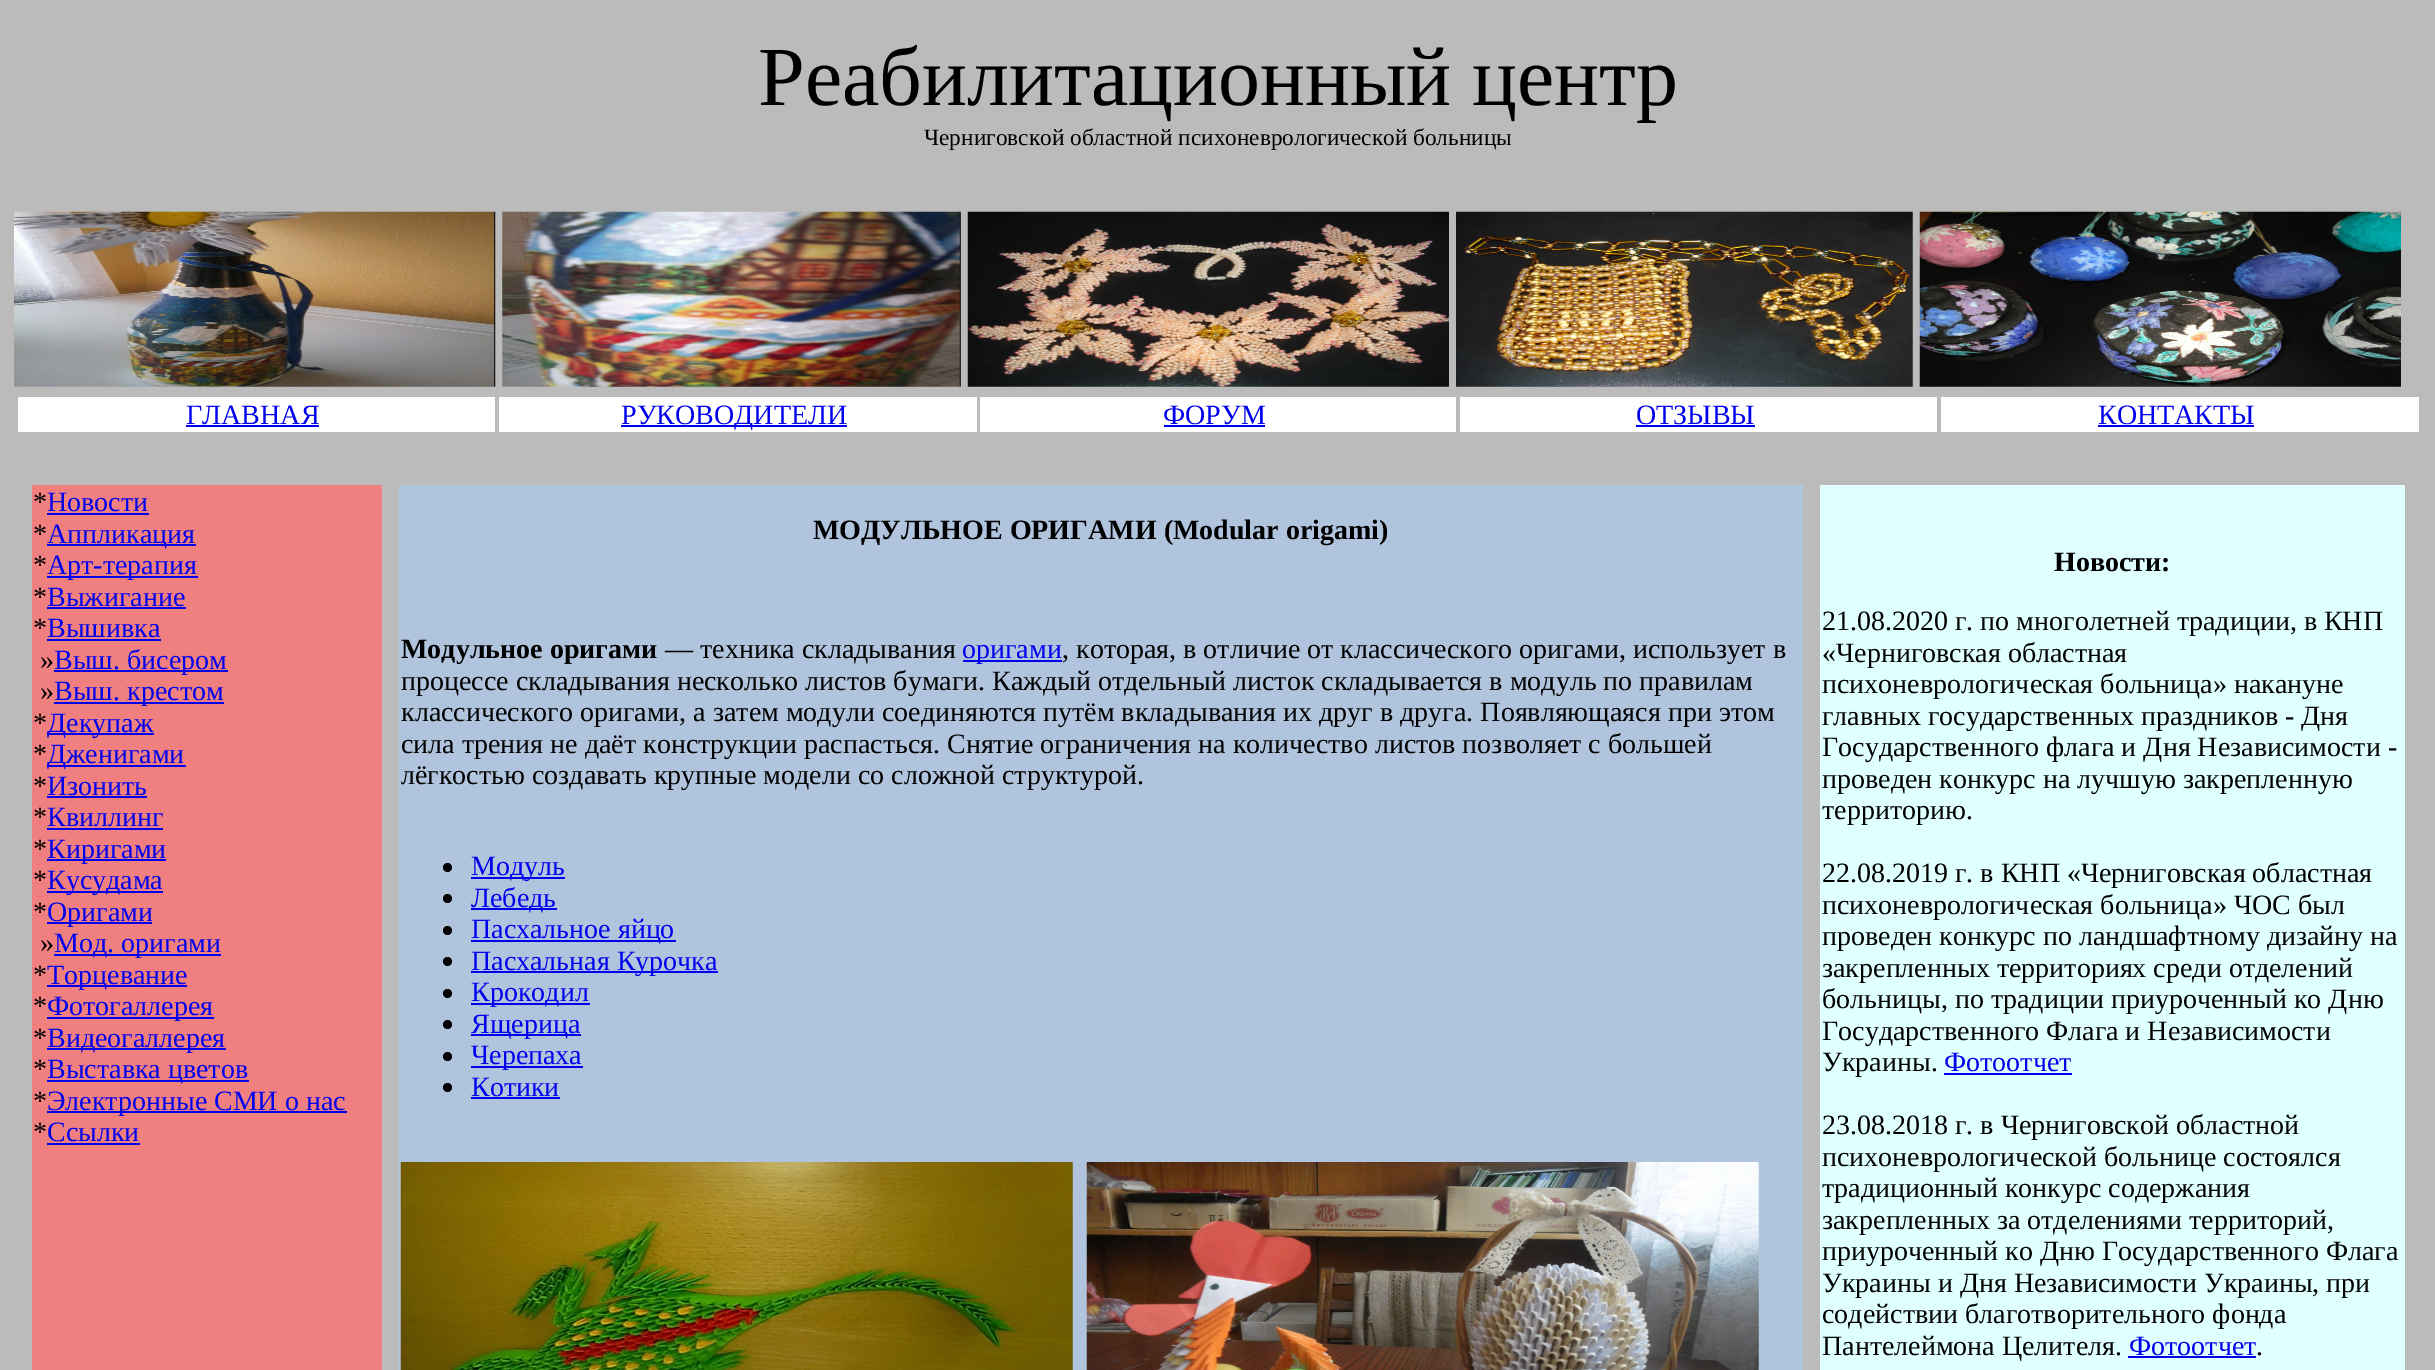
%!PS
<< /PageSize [2435 1370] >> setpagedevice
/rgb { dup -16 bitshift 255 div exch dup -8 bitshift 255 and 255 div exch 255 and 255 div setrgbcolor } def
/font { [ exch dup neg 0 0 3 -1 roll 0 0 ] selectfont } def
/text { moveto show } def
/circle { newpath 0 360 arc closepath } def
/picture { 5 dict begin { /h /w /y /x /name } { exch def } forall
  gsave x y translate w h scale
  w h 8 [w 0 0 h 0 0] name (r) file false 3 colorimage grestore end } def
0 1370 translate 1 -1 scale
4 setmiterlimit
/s1 { /LiberationSerif-Regular 84 font 16#000000 rgb } def
/s2 { /LiberationSerif-Regular 23.3 font 16#000000 rgb } def
/s3 { /LiberationSerif-Regular 28 font 16#0000EE rgb } def
/s4 { /LiberationSerif-Regular 28 font 16#000000 rgb } def
/s5 { /LiberationSerif-Bold 28 font 16#000000 rgb } def
16#BBBBBB rgb
0 0 2435 1370 rectfill
s1
(Реабилитационный центр) 758 105 text
s2
(Черниговской областной психоневрологической больницы) 924 145 text
(pic1.raw) 14 211 482 176 picture
(pic2.raw) 502 211 459 176 picture
(pic3.raw) 967 211 482 176 picture
(pic4.raw) 1456 211 457 176 picture
(pic5.raw) 1919 211 482 176 picture
16#FFFFFF rgb
18 397 477 35 rectfill
s3
(ГЛАВНАЯ) 186 424 text
186 425 133 2 rectfill
16#FFFFFF rgb
499 397 478 35 rectfill
16#0000EE rgb
621 425 226 2 rectfill
(РУКОВОДИТЕЛИ) 621 424 text
16#FFFFFF rgb
980 397 476 35 rectfill
s3
(ФОРУМ) 1163 424 text
1164 425 101 2 rectfill
16#FFFFFF rgb
1460 397 477 35 rectfill
s3
(ОТЗЫВЫ) 1636 424 text
1636 425 119 2 rectfill
16#FFFFFF rgb
1941 397 478 35 rectfill
s3
(КОНТАКТЫ) 2098 424 text
2098 425 156 2 rectfill
16#F08080 rgb
32 485 350 885 rectfill
s4
(*) 33 511 text
s3
(Новости) 47 511 text
47 513 102 2 rectfill
s4
(*) 33 543 text
16#0000EE rgb
47 544 149 2 rectfill
(Аппликация) 47 543 text
s4
(*) 33 574 text
16#0000EE rgb
47 576 151 2 rectfill
(Арт-терапия) 47 574 text
s4
(*) 33 606 text
s3
(Выжигание) 47 606 text
47 607 139 2 rectfill
s4
(*) 33 637 text
s3
(Вышивка) 47 637 text
47 639 114 2 rectfill
s4
(») 40 669 text
16#0000EE rgb
54 670 174 2 rectfill
(Выш. бисером) 54 669 text
s4
(») 40 700 text
16#0000EE rgb
54 702 170 2 rectfill
(Выш. крестом) 54 700 text
s4
(*) 33 732 text
16#0000EE rgb
47 733 107 2 rectfill
(Декупаж) 47 732 text
s4
(*) 33 763 text
16#0000EE rgb
47 765 139 2 rectfill
(Дженигами) 47 763 text
s4
(*) 33 795 text
s3
(Изонить) 47 795 text
47 796 100 2 rectfill
s4
(*) 33 826 text
s3
(Квиллинг) 47 826 text
47 828 116 2 rectfill
s4
(*) 33 858 text
16#0000EE rgb
47 859 119 2 rectfill
(Киригами) 47 858 text
s4
(*) 33 889 text
16#0000EE rgb
47 891 116 2 rectfill
(Кусудама) 47 889 text
s4
(*) 33 921 text
16#0000EE rgb
47 922 105 2 rectfill
(Оригами) 47 921 text
s4
(») 40 952 text
16#0000EE rgb
54 954 167 2 rectfill
(Мод. оригами) 54 952 text
s4
(*) 33 984 text
16#0000EE rgb
47 985 140 2 rectfill
(Торцевание) 47 984 text
s4
(*) 33 1015 text
16#0000EE rgb
47 1017 167 2 rectfill
(Фотогаллерея) 47 1015 text
s4
(*) 33 1047 text
16#0000EE rgb
47 1048 179 2 rectfill
(Видеогаллерея) 47 1047 text
s4
(*) 33 1078 text
16#0000EE rgb
47 1080 202 2 rectfill
(Выставка цветов) 47 1078 text
s4
(*) 33 1110 text
16#0000EE rgb
47 1111 300 2 rectfill
(Электронные СМИ о нас) 47 1110 text
s4
(*) 33 1141 text
s3
(Ссылки) 47 1141 text
47 1143 93 2 rectfill
16#B0C4DE rgb
399 485 1404 885 rectfill
s5
(МОДУЛЬНОЕ ОРИГАМИ \(Modular origami\)) 813 539 text
(Модульное оригами) 401 658 text
s4
(— техника складывания) 665 658 text
16#0000EE rgb
963 660 99 2 rectfill
(оригами) 962 658 text
s4
(, которая, в отличие от классического оригами, использует в) 1062 658 text
(процессе складывания несколько листов бумаги. Каждый отдельный листок складывается в модуль по правилам) 401 690 text
(классического оригами, а затем модули соединяются путём вкладывания их друг в друга. Появляющаяся при этом) 401 721 text
(сила трения не даёт конструкции распасться. Снятие ограничения на количество листов позволяет с большей) 401 753 text
(лёгкостью создавать крупные модели со сложной структурой.) 401 784 text
447.5 867.5 4.5 circle fill
16#0000EE rgb
471 877 94 2 rectfill
(Модуль) 471 875 text
16#000000 rgb
447.5 898.5 4.5 circle fill
16#0000EE rgb
471 908 86 2 rectfill
(Лебедь) 471 907 text
16#000000 rgb
447.5 930.5 4.5 circle fill
16#0000EE rgb
471 940 205 2 rectfill
(Пасхальное яйцо) 471 938 text
16#000000 rgb
447.5 961.5 4.5 circle fill
16#0000EE rgb
471 971 247 2 rectfill
(Пасхальная Курочка) 471 970 text
16#000000 rgb
447.5 993.5 4.5 circle fill
16#0000EE rgb
471 1003 119 2 rectfill
(Крокодил) 471 1001 text
16#000000 rgb
447.5 1024.5 4.5 circle fill
16#0000EE rgb
471 1034 110 2 rectfill
(Ящерица) 471 1033 text
16#000000 rgb
447.5 1056.5 4.5 circle fill
16#0000EE rgb
471 1066 112 2 rectfill
(Черепаха) 471 1064 text
16#000000 rgb
447.5 1087.5 4.5 circle fill
s3
(Котики) 471 1096 text
471 1097 89 2 rectfill
(pic6.raw) 400 1162 673 208 picture
(pic7.raw) 1086 1162 673 208 picture
16#E0FFFF rgb
1820 485 585 885 rectfill
s5
(Новости:) 2054 571 text
s4
(21.08.2020 г. по многолетней традиции, в КНП) 1822 630 text
(«Черниговская областная) 1822 662 text
(психоневрологическая больница» накануне) 1822 693 text
(главных государственных праздников - Дня) 1822 725 text
(Государственного флага и Дня Независимости -) 1822 756 text
(проведен конкурс на лучшую закрепленную) 1822 788 text
(территорию.) 1822 819 text
(22.08.2019 г. в КНП «Черниговская областная) 1822 882 text
(психоневрологическая больница» ЧОС был) 1822 914 text
(проведен конкурс по ландшафтному дизайну на) 1822 945 text
(закрепленных территориях среди отделений) 1822 977 text
(больницы, по традиции приуроченный ко Дню) 1822 1008 text
(Государственного Флага и Независимости) 1822 1040 text
(Украины.) 1822 1071 text
s3
(Фотоотчет) 1944 1071 text
1944 1073 128 2 rectfill
s4
(23.08.2018 г. в Черниговской областной) 1822 1134 text
(психоневрологической больнице состоялся) 1822 1166 text
(традиционный конкурс содержания) 1822 1197 text
(закрепленных за отделениями территорий,) 1822 1229 text
(приуроченный ко Дню Государственного Флага) 1822 1260 text
(Украины и Дня Независимости Украины, при) 1822 1292 text
(содействии благотворительного фонда) 1822 1323 text
(Пантелеймона Целителя.) 1822 1355 text
s3
(Фотоотчет) 2129 1355 text
2128 1356 128 2 rectfill
s4
(.) 2256 1355 text
showpage
